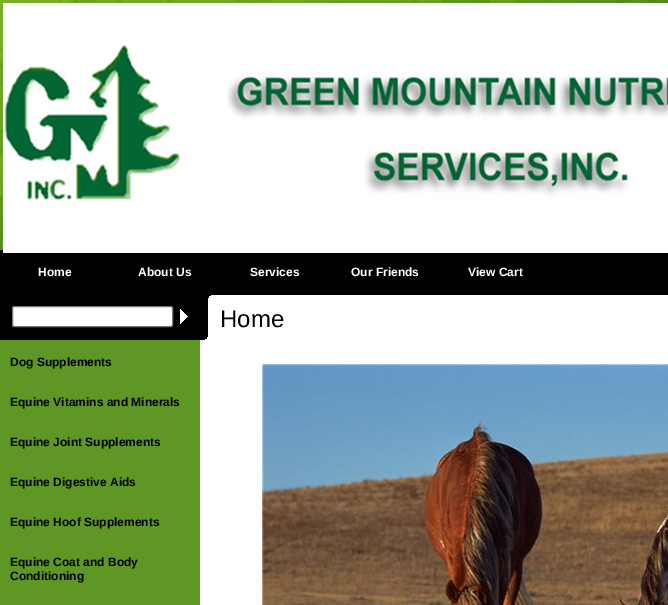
%!PS
<< /PageSize [668 605] >> setpagedevice
/rgb { dup -16 bitshift 255 div exch dup -8 bitshift 255 and 255 div exch 255 and 255 div setrgbcolor } def
/font { [ exch dup neg 0 0 3 -1 roll 0 0 ] selectfont } def
/text { moveto show } def
/roundrect { 5 dict begin { /r /h /w /y /x } { exch def } forall
  x r add y moveto x w add y 2 copy h add r arct x w add y h add x 1 index r arct
  x y h add x y r arct x y 2 copy exch w add exch r arct closepath end } def
/picture { 5 dict begin { /h /w /y /x /name } { exch def } forall
  gsave x y translate w h scale
  w h 8 [w 0 0 h 0 0] name (r) file false 3 colorimage grestore end } def
0 605 translate 1 -1 scale
4 setmiterlimit
/s1 { /LiberationSans-Bold 12 font 16#FFFFFF rgb } def
/s2 { /LiberationSans-Regular 24 font 16#000000 rgb } def
/s3 { /LiberationSans-Bold 12 font 16#000000 rgb } def
16#FFFFFF rgb
0 0 668 605 rectfill
(pic1.raw) 0 0 668 250 picture
16#000000 rgb
0 250 668 45 rectfill
(pic2.raw) 3 3 665 250 picture
s1
(Home) 38 276 text
(About Us) 138 276 text
(Services) 250 276 text
(Our Friends) 351 276 text
(View Cart) 468 276 text
(pic3.raw) 200 295 11 45 picture
s2
(Home) 220 327 text
(pic4.raw) 262 364 406 241 picture
16#5E9724 rgb
0 340 200 265 rectfill
16#000000 rgb
0 295 200 45 rectfill
16#FFFFFF rgb
12.5 306.5 160 20 1.5 roundrect gsave fill grestore
16#767676 rgb
stroke
(pic5.raw) 180 309 8 15 picture
s3
(Dog Supplements) 10 366 text
(Equine Vitamins and Minerals) 10 406 text
(Equine Joint Supplements) 10 446 text
(Equine Digestive Aids) 10 486 text
(Equine Hoof Supplements) 10 526 text
(Equine Coat and Body) 10 566 text
(Conditioning) 10 580 text
showpage
